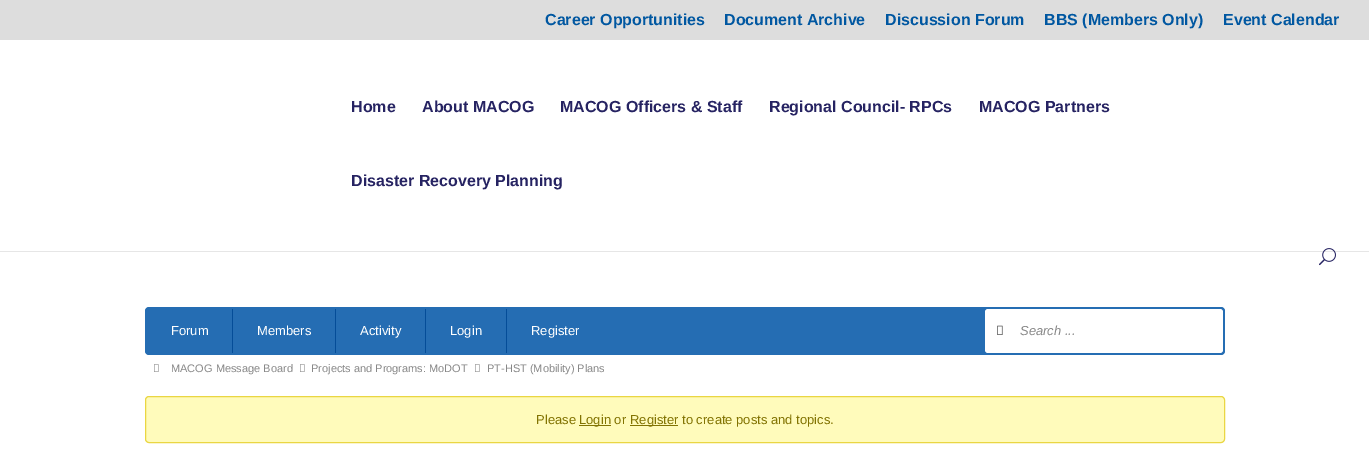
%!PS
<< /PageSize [1369 457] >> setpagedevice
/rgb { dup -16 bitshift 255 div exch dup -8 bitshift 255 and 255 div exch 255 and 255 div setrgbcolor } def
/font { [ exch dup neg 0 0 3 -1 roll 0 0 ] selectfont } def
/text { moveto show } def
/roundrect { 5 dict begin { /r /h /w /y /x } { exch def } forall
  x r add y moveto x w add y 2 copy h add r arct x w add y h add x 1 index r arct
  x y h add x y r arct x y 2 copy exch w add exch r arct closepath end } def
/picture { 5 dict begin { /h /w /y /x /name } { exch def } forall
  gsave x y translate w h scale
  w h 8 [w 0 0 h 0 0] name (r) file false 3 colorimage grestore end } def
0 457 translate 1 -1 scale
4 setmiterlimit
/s1 { /LiberationSans-Bold 16 font 16#0057A1 rgb } def
/s2 { /LiberationSans-Bold 16 font 16#262362 rgb } def
/s3 { /LiberationSans-Regular 13 font 16#FFFFFF rgb } def
/s4 { /LiberationSans-Italic 13 font 16#888888 rgb } def
/s5 { /LiberationSans-Regular 11 font 16#888888 rgb } def
/s6 { /LiberationSans-Regular 13 font 16#827302 rgb } def
16#DDDDDD rgb
0 0 1369 457 rectfill
s1
(Career Opportunities) 545 25 text
(Document Archive) 724 25 text
(Discussion Forum) 885 25 text
(BBS \(Members Only\)) 1044 25 text
(Event Calendar) 1223 25 text
16#E6E6E6 rgb
0 251 1369 1 rectfill
16#FFFFFF rgb
0 40 1369 211 rectfill
s2
(Home) 351 112 text
(About MACOG) 422 112 text
(MACOG Officers & Staff) 560 112 text
(Regional Council- RPCs) 769 112 text
(MACOG Partners) 979 112 text
(Disaster Recovery Planning) 351 186 text
16#FFFFFF rgb
0 252 1369 205 rectfill
(pic1.raw) 1319 248 17 18 picture
16#256DB3 rgb
145 307 1080 48 4 roundrect fill
s3
(Forum) 171 335 text
16#054D98 rgb
232 309 1 44 rectfill
s3
(Members) 257 335 text
16#054D98 rgb
335 309 1 44 rectfill
s3
(Activity) 360 335 text
16#054D98 rgb
425 309 1 44 rectfill
s3
(Login) 450 335 text
16#054D98 rgb
506 309 1 44 rectfill
s3
(Register) 531 335 text
985 309 238 44 3 roundrect fill
(pic2.raw) 997 325 6 10 picture
s4
(Search ...) 1020 335 text
(pic3.raw) 154 364 5 8 picture
s5
(MACOG Message Board) 171 372 text
(pic3.raw) 300 364 5 8 picture
(Projects and Programs: MoDOT) 311 372 text
(pic3.raw) 475 364 5 8 picture
(PT-HST \(Mobility\) Plans) 487 372 text
16#FFFBBB rgb
145.5 396.5 1079 46 3.5 roundrect gsave fill grestore
16#EAD643 rgb
stroke
s6
(Please) 536 424 text
579 425 32 1 rectfill
(Login or) 579 424 text
630 425 48 1 rectfill
(Register to create posts and topics.) 630 424 text
showpage
